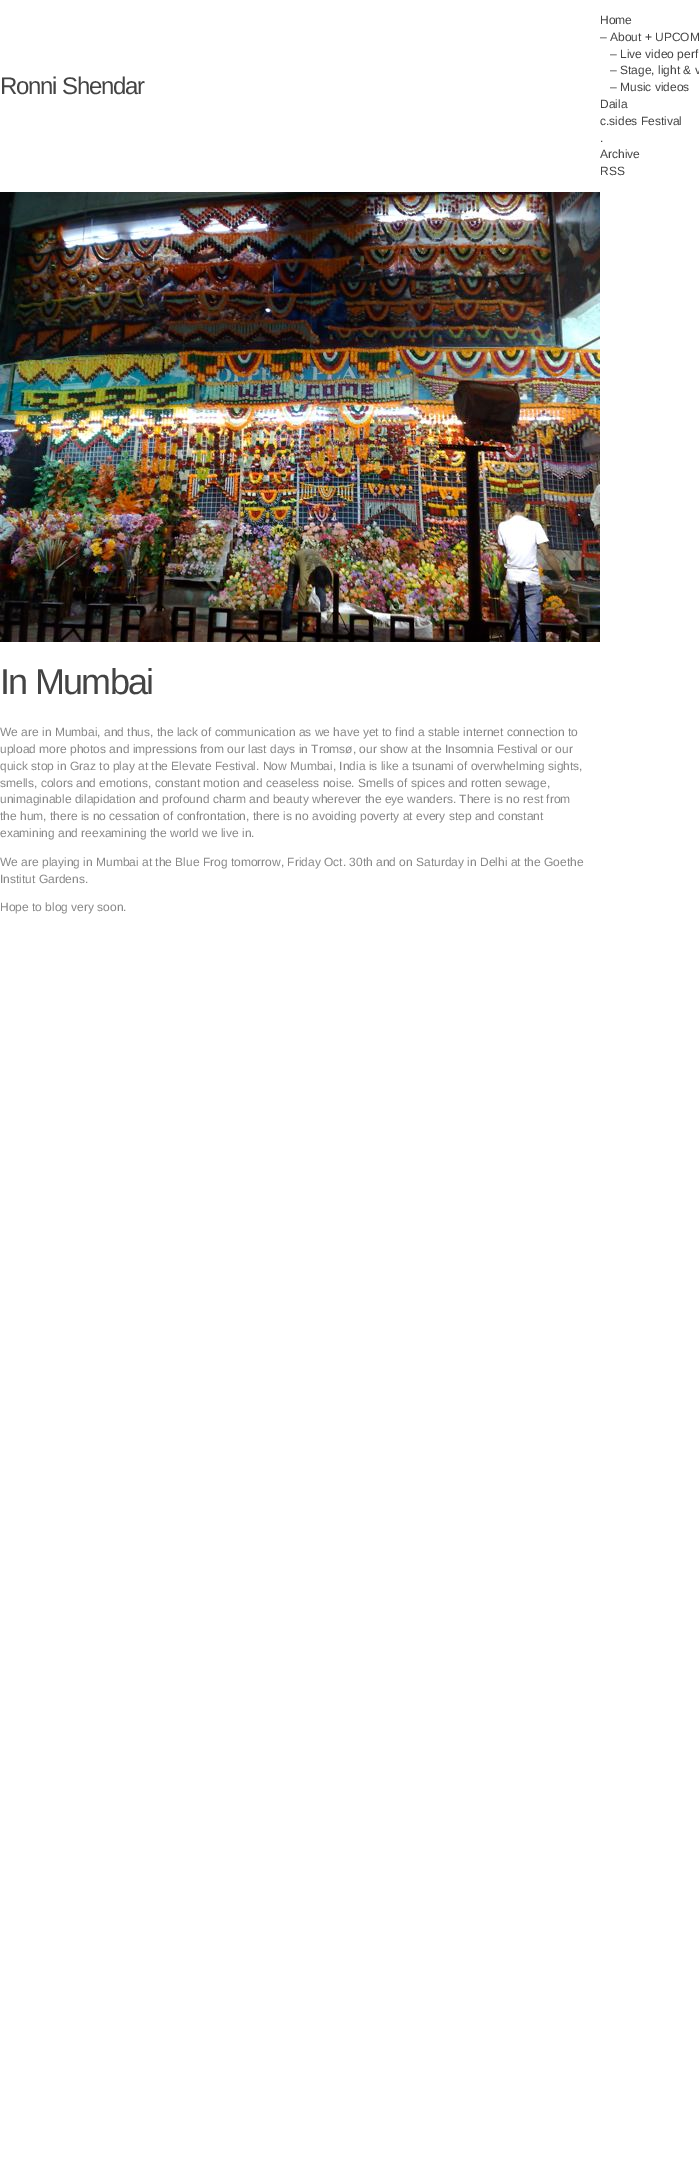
%!PS
<< /PageSize [699 2171] >> setpagedevice
/rgb { dup -16 bitshift 255 div exch dup -8 bitshift 255 and 255 div exch 255 and 255 div setrgbcolor } def
/font { [ exch dup neg 0 0 3 -1 roll 0 0 ] selectfont } def
/text { moveto show } def
/picture { 5 dict begin { /h /w /y /x /name } { exch def } forall
  gsave x y translate w h scale
  w h 8 [w 0 0 h 0 0] name (r) file false 3 colorimage grestore end } def
0 2171 translate 1 -1 scale
4 setmiterlimit
/s1 { /LiberationSans-Regular 12 font 16#444444 rgb } def
/s2 { /LiberationSans-Regular 12 font 16#888888 rgb } def
16#FFFFFF rgb
0 0 699 2171 rectfill
/LiberationSans-Regular 24 font
16#444444 rgb
0 94 moveto -1.25 0 (Ronni Shendar) ashow
s1
(Home) 600 24 text
(– About + UPCOM) 600 41 text
(– Live video perf) 610 58 text
(– Stage, light & v) 610 74 text
(– Music videos) 610 91 text
(Daila) 600 108 text
(c.sides Festival) 600 125 text
(.) 600 142 text
(Archive) 600 158 text
(RSS) 600 175 text
(pic1.raw) 0 192 600 450 picture
/LiberationSans-Regular 36 font
0 694 moveto -1.75 0 (In Mumbai) ashow
s2
(We are in Mumbai, and thus, the lack of communication as we have yet to find a stable internet connection to) 0 736 text
(upload more photos and impressions from our last days in Tromsø, our show at the Insomnia Festival or our) 0 753 text
(quick stop in Graz to play at the Elevate Festival. Now Mumbai, India is like a tsunami of overwhelming sights,) 0 770 text
(smells, colors and emotions, constant motion and ceaseless noise. Smells of spices and rotten sewage,) 0 787 text
(unimaginable dilapidation and profound charm and beauty wherever the eye wanders. There is no rest from) 0 803 text
(the hum, there is no cessation of confrontation, there is no avoiding poverty at every step and constant) 0 820 text
(examining and reexamining the world we live in.) 0 837 text
(We are playing in Mumbai at the Blue Frog tomorrow, Friday Oct. 30th and on Saturday in Delhi at the Goethe) 0 866 text
(Institut Gardens.) 0 883 text
(Hope to blog very soon.) 0 911 text
showpage
